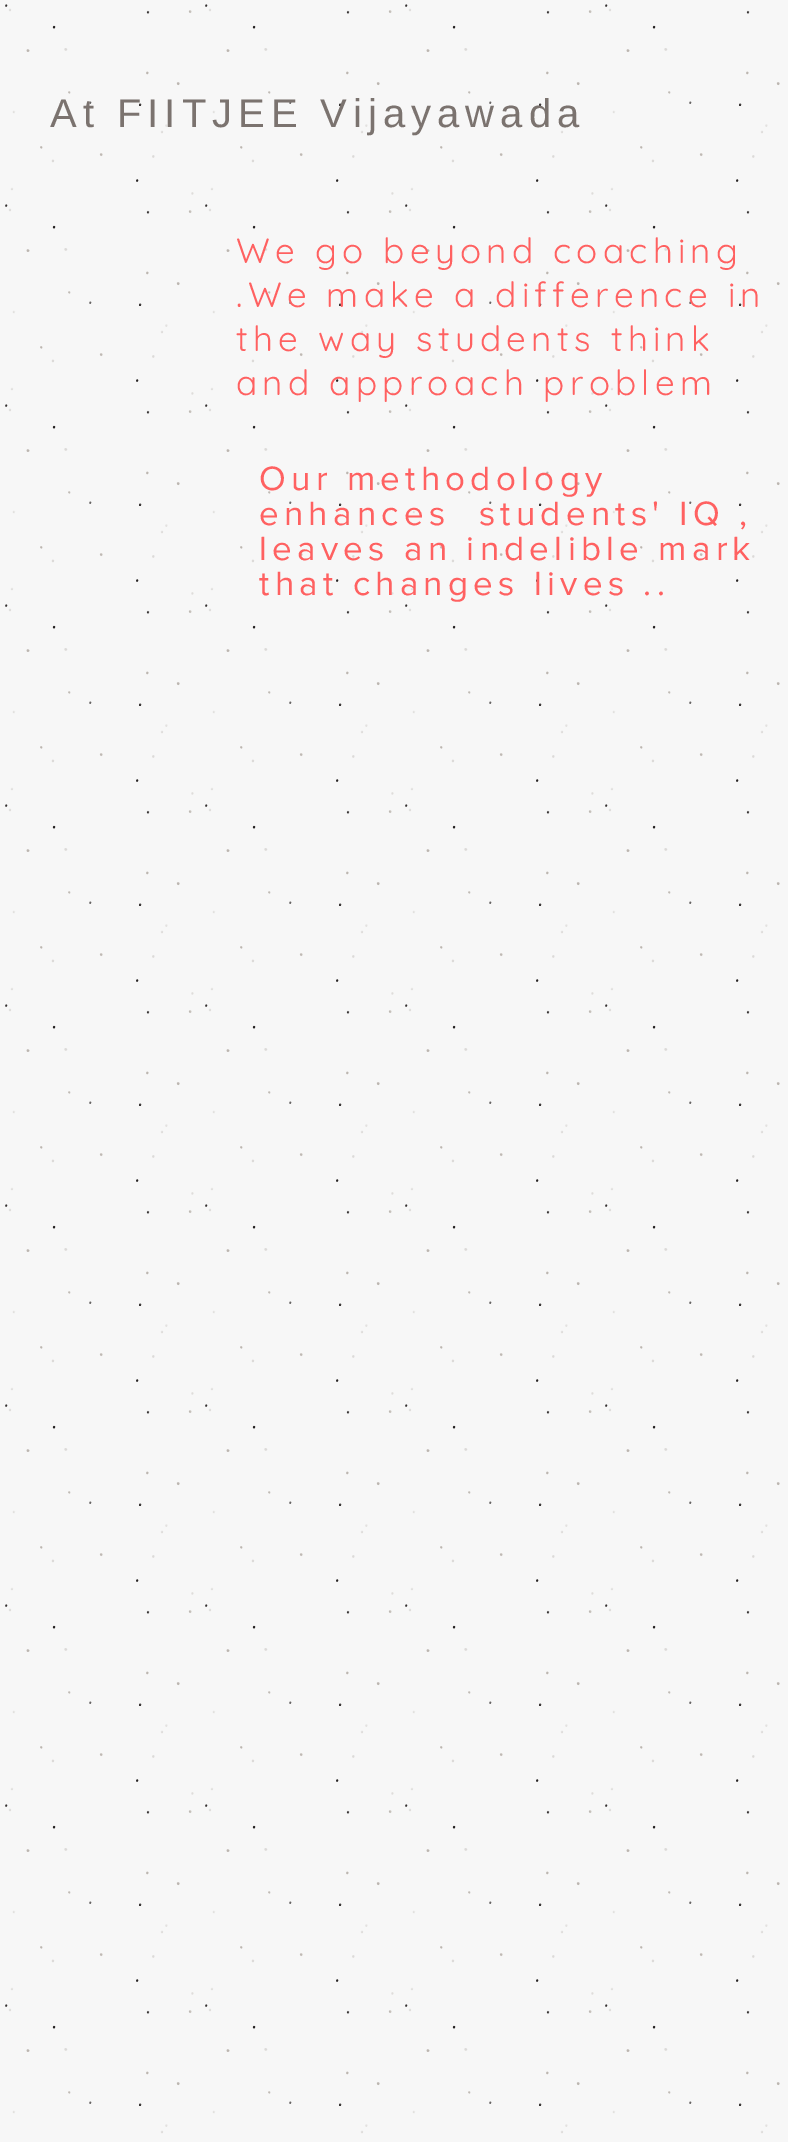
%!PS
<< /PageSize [788 2142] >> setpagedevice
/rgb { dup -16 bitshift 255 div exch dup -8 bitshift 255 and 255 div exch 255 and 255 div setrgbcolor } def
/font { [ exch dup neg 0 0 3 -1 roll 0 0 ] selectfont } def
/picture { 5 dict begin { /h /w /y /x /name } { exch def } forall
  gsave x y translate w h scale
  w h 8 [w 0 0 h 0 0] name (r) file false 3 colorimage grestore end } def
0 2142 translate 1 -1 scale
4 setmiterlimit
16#F7F7F7 rgb
0 0 788 2142 rectfill
(pic1.raw) 5 4 775 2130 picture
/LiberationSans-Regular 40 font
16#7B736F rgb
50 127 moveto 6 0 (At FIITJEE Vijayawada) ashow
/Quicksand-Regular 35 font
16#FF6161 rgb
236 263 moveto 5.25 0 (We go beyond coaching) ashow
236 307 moveto 5.25 0 (.We make a difference in) ashow
236 351 moveto 5.25 0 (the way students think) ashow
236 395 moveto 5.25 0 (and approach problem) ashow
/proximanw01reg-Regular 35 font
259 490 moveto 5.25 0 (Our methodology) ashow
259 525 moveto 5.25 0 (enhances  students' IQ ,) ashow
259 560 moveto 5.25 0 (leaves an indelible mark) ashow
259 595 moveto 5.25 0 (that changes lives ..) ashow
showpage
